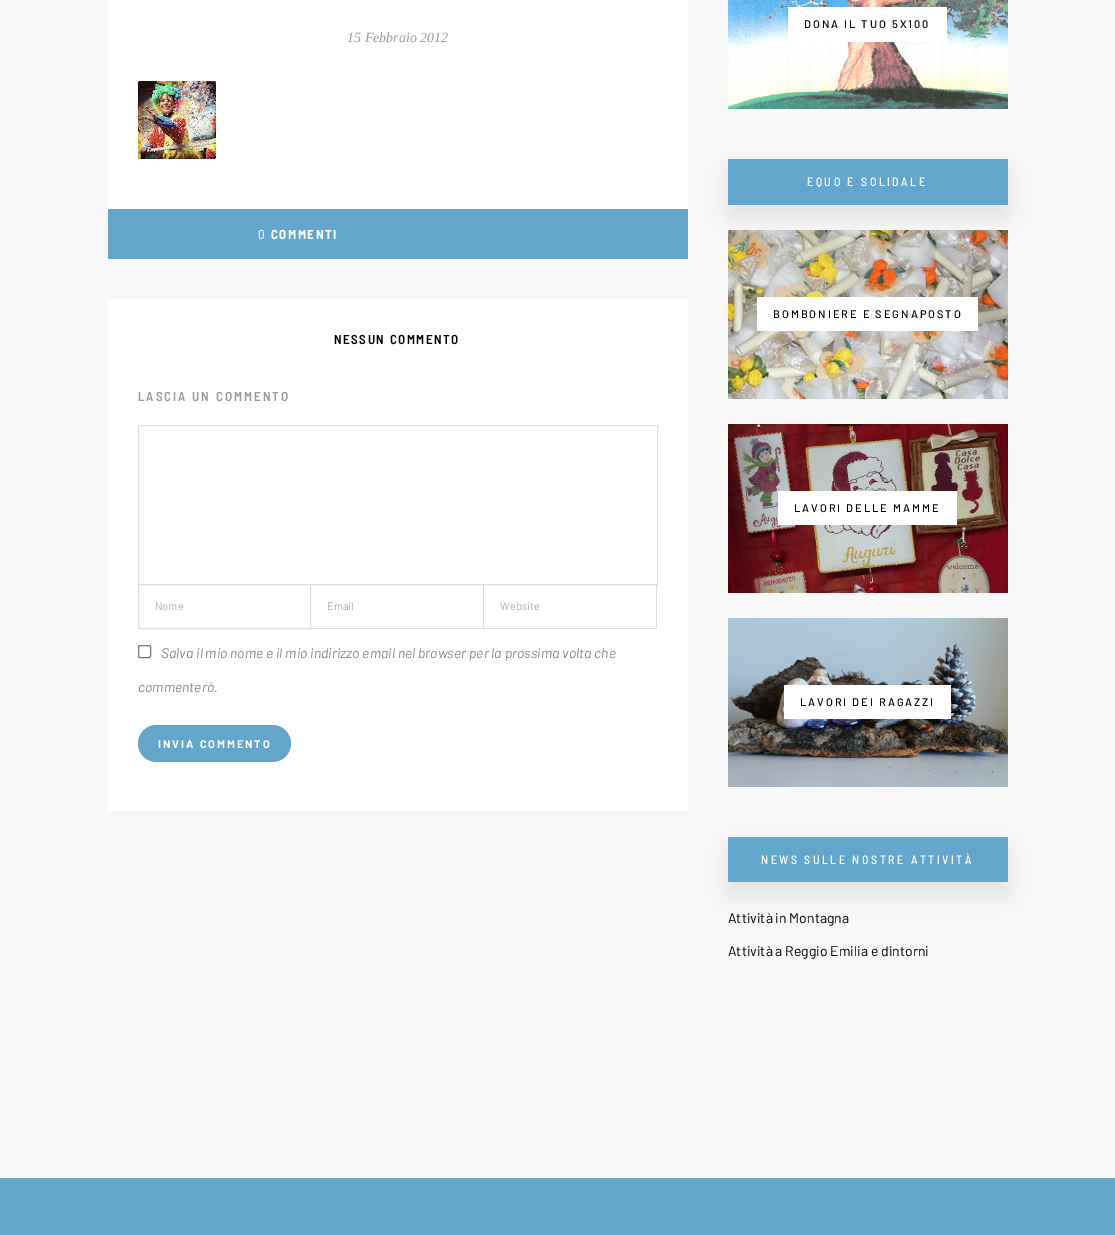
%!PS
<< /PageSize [1115 1235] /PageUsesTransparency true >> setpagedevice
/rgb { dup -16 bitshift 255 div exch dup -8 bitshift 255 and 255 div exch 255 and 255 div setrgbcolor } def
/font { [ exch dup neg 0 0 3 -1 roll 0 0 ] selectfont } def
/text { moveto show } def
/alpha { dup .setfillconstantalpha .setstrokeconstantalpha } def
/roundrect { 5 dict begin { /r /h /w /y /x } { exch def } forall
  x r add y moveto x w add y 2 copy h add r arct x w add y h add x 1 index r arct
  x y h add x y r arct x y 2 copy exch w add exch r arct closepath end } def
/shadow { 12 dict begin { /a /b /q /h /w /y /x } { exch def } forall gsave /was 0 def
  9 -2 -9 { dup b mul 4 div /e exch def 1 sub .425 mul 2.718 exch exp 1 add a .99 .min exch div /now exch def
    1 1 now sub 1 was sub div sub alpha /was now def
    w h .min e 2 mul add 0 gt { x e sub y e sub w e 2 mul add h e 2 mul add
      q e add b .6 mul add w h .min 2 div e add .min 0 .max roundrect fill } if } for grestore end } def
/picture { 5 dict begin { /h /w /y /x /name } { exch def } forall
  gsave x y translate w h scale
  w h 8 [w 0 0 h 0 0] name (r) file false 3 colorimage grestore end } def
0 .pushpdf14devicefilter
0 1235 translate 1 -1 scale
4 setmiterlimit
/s1 { /LiberationSerif-Italic 14 font 16#999999 rgb } def
/s2 { /Barlow-Regular 11 font 16#AAAAAA rgb } def
/s3 { /Barlow-Italic 14 font 16#888888 rgb } def
/s4 { /Barlow-Regular 14 font 16#000000 rgb } def
16#F8F8F8 rgb
0 0 1115 1235 rectfill
16#FFFFFF rgb
108 0 580 209 rectfill
s1
(15 Febbraio 2012) 347 42 text
(pic1.raw) 138 81 78 78 picture
16#63A5CB rgb
108 209 580 50 rectfill
/BarlowSemiCondensed-Regular 13 font
16#FFFFFF rgb
258 239 moveto 1.5 0 (0) ashow
/BarlowSemiCondensed-Bold 13 font
271 239 moveto 1.5 0 (COMMENTI) ashow
108 299 580 512 rectfill
/BarlowSemiCondensed-SemiBold 13 font
16#000000 rgb
334 344 moveto 1.5 0 (NESSUN COMMENTO) ashow
16#999999 rgb
138 401 moveto 2 0 (LASCIA UN COMMENTO) ashow
16#DDDDDD rgb
138.5 582.5 172 46 rectstroke
483 582 1 47 rectfill
656 582 1 47 rectfill
16#FFFFFF rgb
139 582 518 2 rectfill
16#DDDDDD rgb
138.5 425.5 519 159 rectstroke
s2
(Nome) 155 610 text
16#DDDDDD rgb
311 628 173 1 rectfill
s2
(Email) 327 610 text
16#DDDDDD rgb
484 628 173 1 rectfill
s2
(Website) 500 610 text
16#767676 rgb
138.5 645.5 12 12 1.5 roundrect stroke
s3
(Salva il mio nome e il mio indirizzo email nel browser per la prossima volta che) 161 658 text
(commenterò.) 138 692 text
16#63A5CB rgb
138 725 153 37 18.5 roundrect fill
/Barlow-Bold 11 font
16#FFFFFF rgb
158 748 moveto 2 0 (INVIA COMMENTO) ashow
(pic2.raw) 728 0 280 109 picture
788 7 159 35 rectfill
/Barlow-Medium 11 font
16#000000 rgb
804 28 moveto 2 0 (DONA IL TUO 5X100) ashow
728 171 280 46 0 12 0.08 shadow
16#63A5CB rgb
728 159 280 46 rectfill
/BarlowSemiCondensed-Medium 12 font
16#FFFFFF rgb
807 186 moveto 2.5 0 (EQUO E SOLIDALE) ashow
(pic3.raw) 728 230 280 169 picture
757 297 221 34 rectfill
/Barlow-Medium 11 font
16#000000 rgb
773 318 moveto 2 0 (BOMBONIERE E SEGNAPOSTO) ashow
(pic4.raw) 728 424 280 169 picture
16#FFFFFF rgb
778 491 179 34 rectfill
16#000000 rgb
794 512 moveto 2 0 (LAVORI DELLE MAMME) ashow
(pic5.raw) 728 618 280 169 picture
16#FFFFFF rgb
784 685 167 34 rectfill
16#000000 rgb
800 706 moveto 2 0 (LAVORI DEI RAGAZZI) ashow
728 849 280 45 0 12 0.08 shadow
16#63A5CB rgb
728 837 280 45 rectfill
/BarlowSemiCondensed-Medium 12 font
16#FFFFFF rgb
761 864 moveto 2.5 0 (NEWS SULLE NOSTRE ATTIVITÀ) ashow
s4
(Attività in Montagna) 728 923 text
(Attività a Reggio Emilia e dintorni) 728 956 text
16#63A5CB rgb
0 1178 1115 57 rectfill
.poppdf14devicefilter showpage
